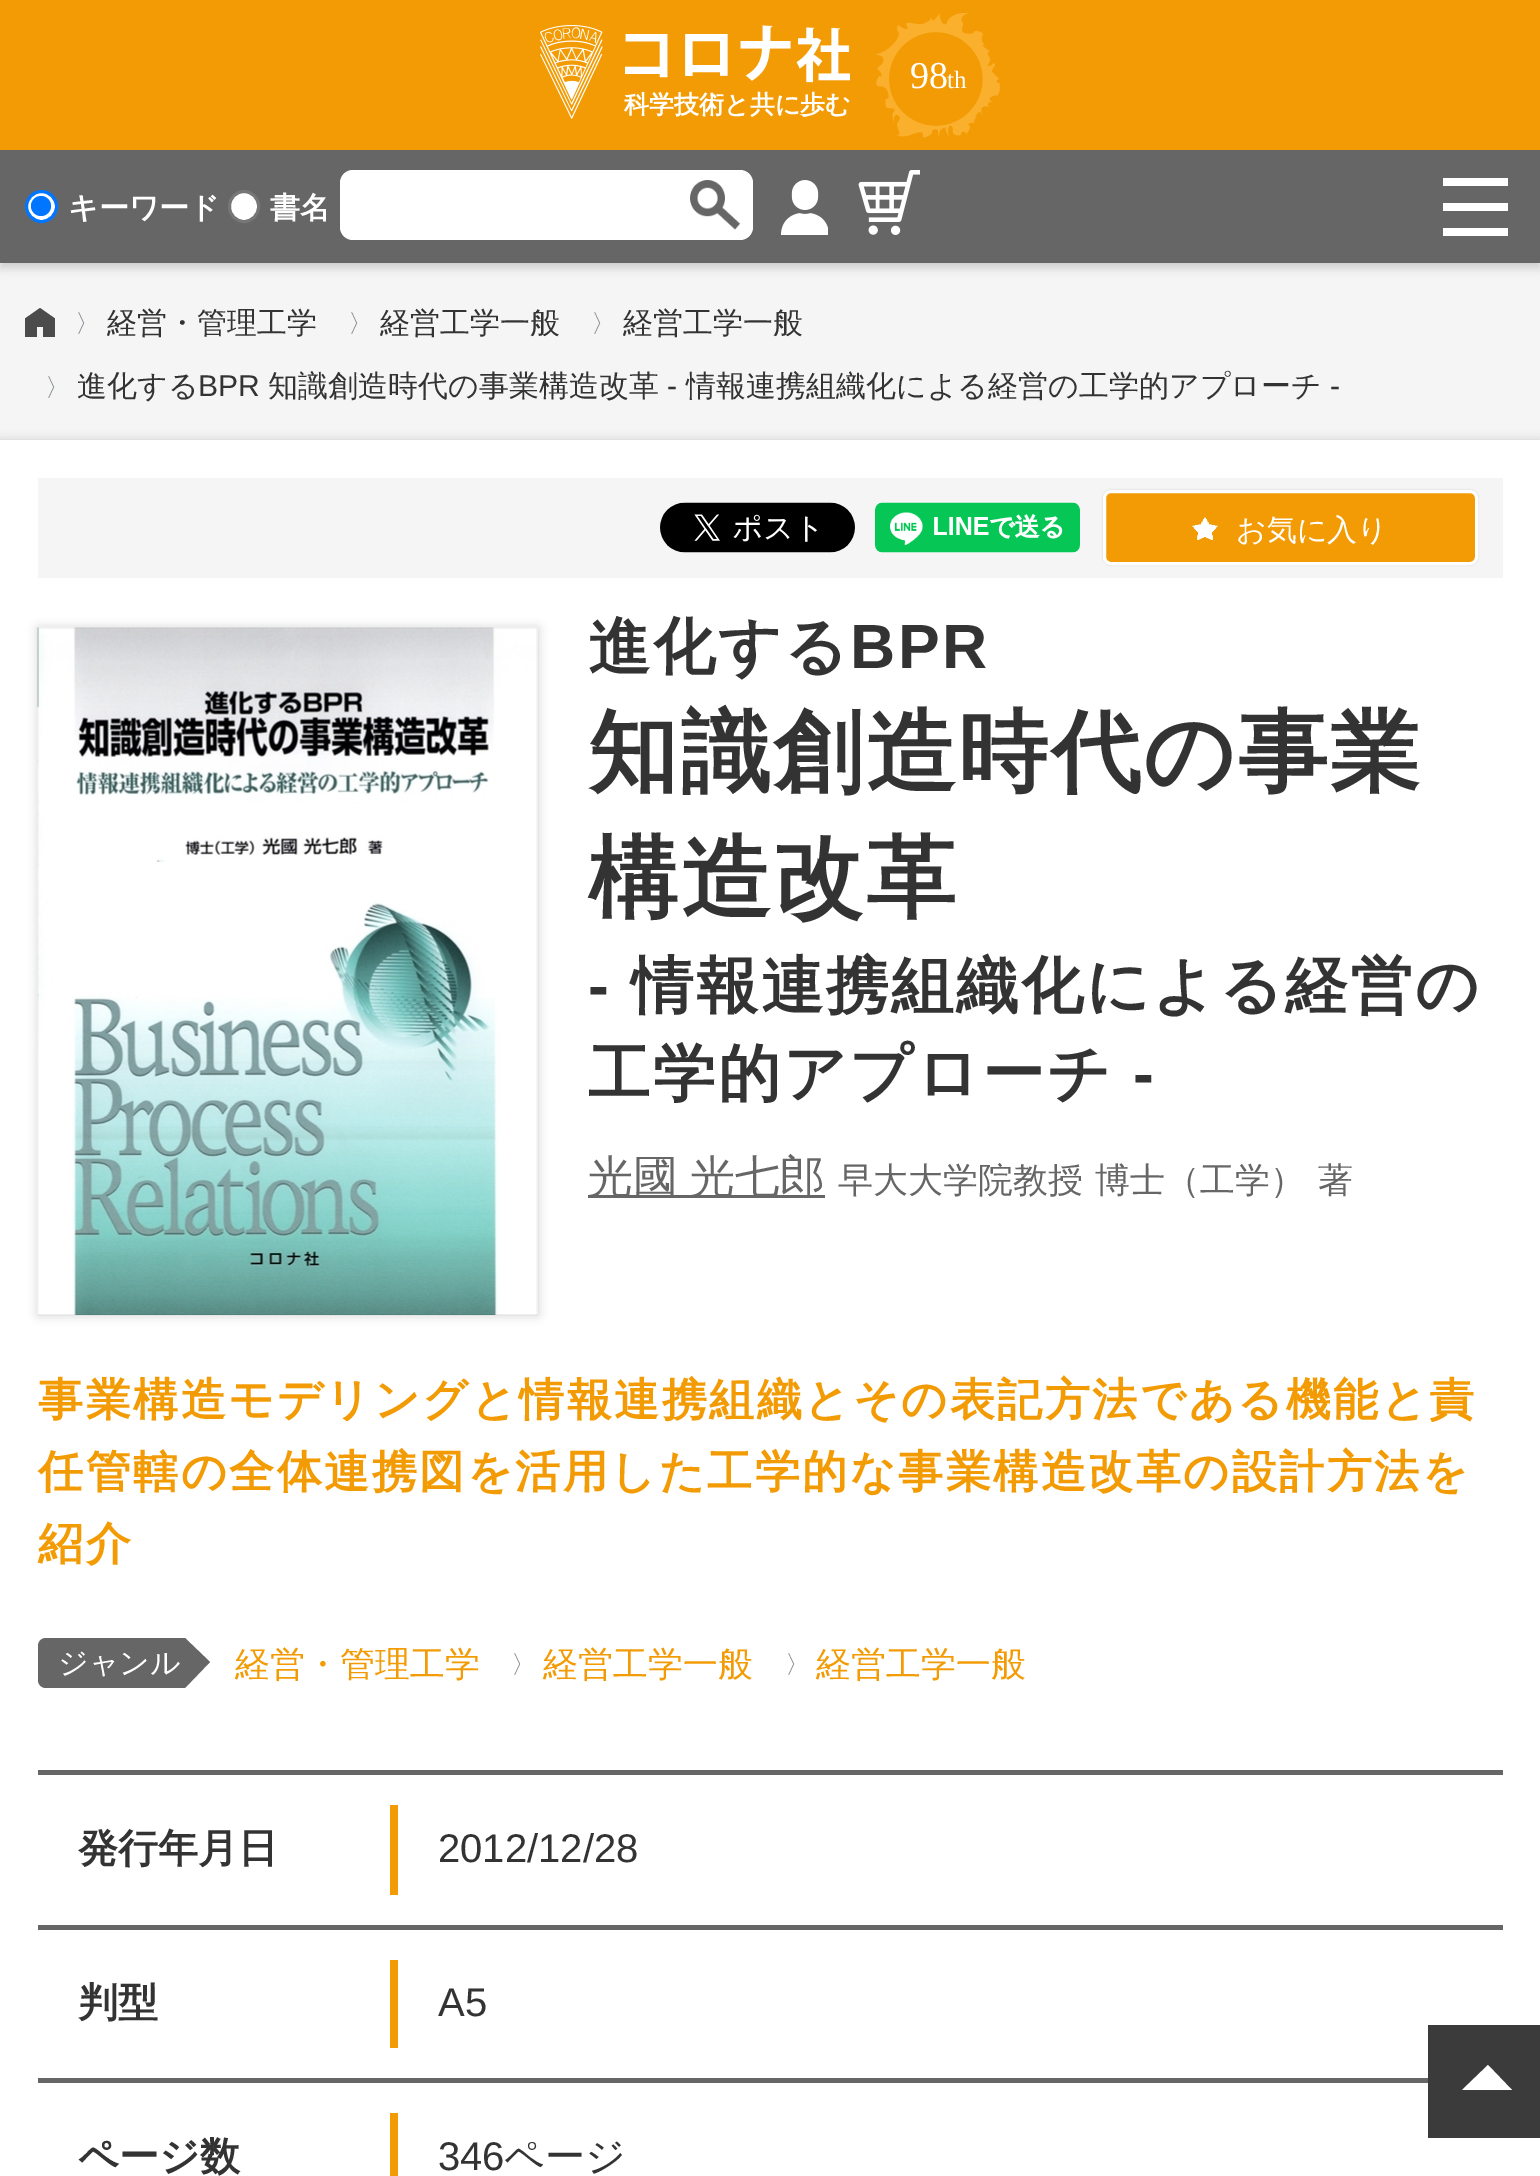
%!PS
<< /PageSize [1540 2176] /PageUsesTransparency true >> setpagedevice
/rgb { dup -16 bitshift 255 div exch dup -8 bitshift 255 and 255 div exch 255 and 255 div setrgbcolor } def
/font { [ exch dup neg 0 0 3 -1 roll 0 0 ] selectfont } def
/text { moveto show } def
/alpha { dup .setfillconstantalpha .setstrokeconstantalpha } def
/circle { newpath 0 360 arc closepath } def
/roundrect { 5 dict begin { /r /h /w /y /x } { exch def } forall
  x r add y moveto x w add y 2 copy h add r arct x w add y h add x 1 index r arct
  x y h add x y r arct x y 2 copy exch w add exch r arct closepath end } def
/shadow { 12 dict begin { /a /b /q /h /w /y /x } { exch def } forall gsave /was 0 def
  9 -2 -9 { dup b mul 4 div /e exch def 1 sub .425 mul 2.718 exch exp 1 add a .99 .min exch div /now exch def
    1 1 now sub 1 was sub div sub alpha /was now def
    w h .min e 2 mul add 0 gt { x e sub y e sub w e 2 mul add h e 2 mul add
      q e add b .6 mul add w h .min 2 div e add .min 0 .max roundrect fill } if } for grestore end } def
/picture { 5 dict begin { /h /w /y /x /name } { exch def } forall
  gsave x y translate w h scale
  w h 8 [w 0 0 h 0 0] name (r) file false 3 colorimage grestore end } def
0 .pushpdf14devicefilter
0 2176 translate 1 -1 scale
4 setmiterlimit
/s1 { /LiberationSerif-Regular 38 font 16#FFFFFF rgb } def
/s2 { /LiberationSerif-Regular 25 font 16#FFFFFF rgb } def
/s3 { /WenQuanYiZenHei-Bold 25 font 16#FFFFFF rgb } def
/s4 { /WenQuanYiZenHei-Bold 30 font 16#FFFFFF rgb } def
/s5 { /WenQuanYiZenHei-Medium 25 font 16#818A91 rgb } def
/s6 { /WenQuanYiZenHei-Medium 30 font 16#333333 rgb } def
/s7 { /LiberationSans-Regular 30 font 16#333333 rgb } def
/s8 { /WenQuanYiZenHei-Medium 30 font 16#FFFFFF rgb } def
/s9 { /WenQuanYiZenHei-Medium 35 font 16#666666 rgb } def
/s10 { /WenQuanYiZenHei-Medium 35 font 16#F29B04 rgb } def
/s11 { /WenQuanYiZenHei-Bold 40 font 16#333333 rgb } def
/s12 { /LiberationSans-Regular 40 font 16#333333 rgb } def
/s13 { /WenQuanYiZenHei-Medium 40 font 16#333333 rgb } def
16#F5F5F5 rgb
0 0 1540 2176 rectfill
16#CCCCCC rgb
0 155 1540 113 0 5 1 shadow
16#F29B04 rgb
0 0 1540 150 rectfill
(pic1.raw) 875 13 125 125 picture
s1
(98) 910 88 text
s2
(th) 947 88 text
(pic2.raw) 540 25 63 94 picture
(pic3.raw) 625 25 225 58 picture
s3
(科学技術と共に歩む) 624 113 text
16#666666 rgb
0 150 1540 113 rectfill
16#FFFFFF rgb
41.5 206.5 15 circle gsave fill grestore
16#0075FF rgb
3 setlinewidth
stroke
41 206 10 circle fill
s4
(キーワード) 68 218 text
229.5 191.5 29 30 14.5 roundrect gsave fill grestore
16#767676 rgb
stroke
s4
(書名) 270 218 text
340 170 413 70 13 roundrect fill
(pic4.raw) 690 180 50 50 picture
(pic5.raw) 781 180 47 55 picture
(pic6.raw) 858 170 62 65 picture
1443 178 65 8 rectfill
1443 203 65 8 rectfill
1443 228 65 8 rectfill
16#4B4B4B rgb
40 308 moveto 25 318.5 lineto 25 337 lineto 37 337 lineto 37 327 lineto 43 327 lineto 43 337 lineto 55 337 lineto 55 318.5 lineto closepath fill
s5
(〉) 75 332 text
s6
(経営・管理工学) 107 333 text
s5
(〉) 348 332 text
s6
(経営工学一般) 380 333 text
s5
(〉) 591 332 text
s6
(経営工学一般) 623 333 text
s5
(〉) 45 396 text
s6
(進化する) 77 396 text
s7
(BPR) 198 396 text
s6
(知識創造時代の事業構造改革) 268 396 text
s7
(-) 667 396 text
s6
(情報連携組織化による経営の工学的アプローチ) 686 396 text
s7
(-) 1330 396 text
16#CCCCCC rgb
0 440 1540 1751 0 5 1 shadow
16#FFFFFF rgb
0 440 1540 1736 rectfill
16#F5F5F5 rgb
38 478 1465 100 rectfill
(pic7.raw) 660 502 195 51 picture
(pic8.raw) 875 502 205 51 picture
16#CCCCCC rgb
1103 490 375 75 8 1 1 shadow
16#F29B04 rgb
1104.5 491.5 372 72 6.5 roundrect gsave fill grestore
16#FFFFFF rgb
stroke
(pic9.raw) 1192 517 26 23 picture
s8
(お気に入り) 1236 540 text
16#CCCCCC rgb
38 628 500 687 0 5 1 shadow
(pic10.raw) 37 627 501 688 picture
/WenQuanYiZenHei-Bold 62.5 font
16#333333 rgb
588 668 moveto 2.5 0 (進化する) ashow
/LiberationSans-Bold 62.5 font
850 668 moveto 2.5 0 (BPR) ashow
/WenQuanYiZenHei-Bold 90 font
588 783 moveto 2.5 0 (知識創造時代の事業) ashow
588 909 moveto 2.5 0 (構造改革) ashow
/LiberationSans-Bold 62.5 font
588 1007 moveto 2.5 0 (-) ashow
/WenQuanYiZenHei-Bold 62.5 font
631 1007 moveto 2.5 0 (情報連携組織化による経営の) ashow
588 1095 moveto 2.5 0 (工学的アプローチ) ashow
/LiberationSans-Bold 62.5 font
1133 1095 moveto 2.5 0 (-) ashow
16#666666 rgb
588 1195 237 3 rectfill
/WenQuanYiZenHei-Medium 45 font
588 1192 moveto -1 0 32 (光國 光七郎) widthshow
s9
(早大大学院教授) 838 1192 text
(博士（工学）) 1095 1192 text
(著) 1318 1192 text
/WenQuanYiZenHei-Bold 45 font
16#F29B04 rgb
38 1415 moveto 2.5 0 (事業構造モデリングと情報連携組織とその表記方法である機能と責) ashow
38 1487 moveto 2.5 0 (任管轄の全体連携図を活用した工学的な事業構造改革の設計方法を) ashow
38 1559 moveto 2.5 0 (紹介) ashow
16#666666 rgb
46 1638 moveto 185 1638 lineto 185 1688 lineto 46 1688 lineto 41.5 1688 38 1684.5 38 1680 curveto 38 1646 lineto 38 1641.5 41.5 1638 46 1638 curveto closepath fill
s8
(ジャンル) 58 1673 text
16#666666 rgb
185 1688 moveto 185 1638 lineto 210 1662 lineto closepath fill
s10
(経営・管理工学) 235 1676 text
s5
(〉) 511 1673 text
s10
(経営工学一般) 543 1676 text
s5
(〉) 785 1673 text
s10
(経営工学一般) 816 1676 text
16#666666 rgb
38 1770 1465 5 rectfill
16#F29B04 rgb
390 1805 8 90 rectfill
s11
(発行年月日) 78 1862 text
s12
(2012/12/28) 438 1862 text
16#666666 rgb
38 1925 1465 5 rectfill
16#F29B04 rgb
390 1960 8 88 rectfill
s11
(判型) 78 2016 text
s12
(A5) 438 2016 text
16#666666 rgb
38 2078 1390 5 rectfill
16#F29B04 rgb
390 2113 8 63 rectfill
s11
(ページ数) 78 2170 text
s12
(346) 438 2170 text
s13
(ページ) 504 2170 text
16#3B3B3B rgb
1428 2025 112 113 rectfill
16#FFFFFF rgb
1512 2090 moveto 1462 2090 lineto 1488 2065 lineto closepath fill
.poppdf14devicefilter showpage
